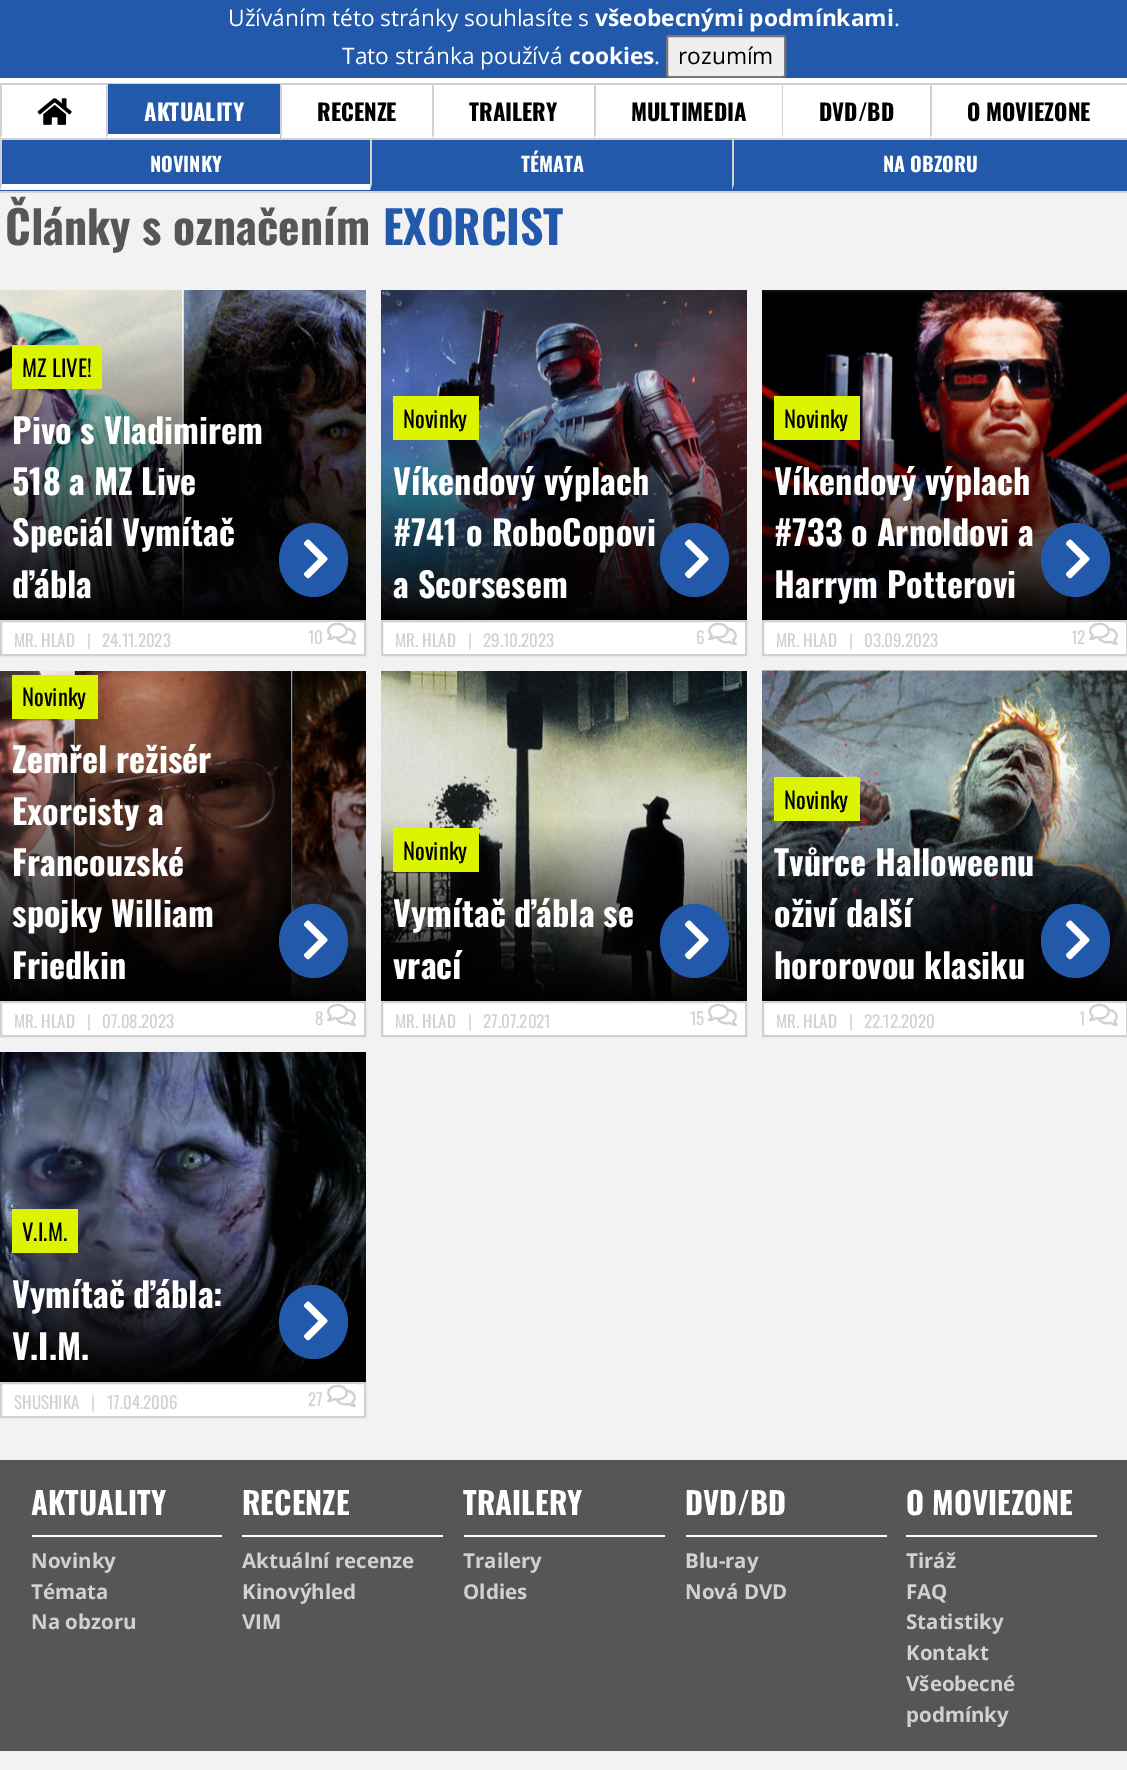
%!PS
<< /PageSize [1127 1770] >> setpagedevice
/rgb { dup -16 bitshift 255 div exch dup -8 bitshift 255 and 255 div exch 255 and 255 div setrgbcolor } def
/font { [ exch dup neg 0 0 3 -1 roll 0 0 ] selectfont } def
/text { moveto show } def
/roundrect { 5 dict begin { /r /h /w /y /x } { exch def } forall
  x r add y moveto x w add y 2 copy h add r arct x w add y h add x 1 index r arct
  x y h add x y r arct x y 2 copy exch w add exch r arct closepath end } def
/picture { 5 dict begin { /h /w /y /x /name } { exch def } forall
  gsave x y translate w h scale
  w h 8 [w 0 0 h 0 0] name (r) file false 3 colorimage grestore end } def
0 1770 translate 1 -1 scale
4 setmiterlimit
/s1 { /OpenSans-Regular 22.75 font 16#FFFFFF rgb } def
/s2 { /OpenSans-Bold 22.75 font 16#FFFFFF rgb } def
/s3 { /OpenSans-Regular 22.75 font 16#000000 rgb } def
/s4 { /Oswald-Bold 22.75 font 16#FFFFFF rgb } def
/s5 { /Oswald-Bold 22.75 font 16#000000 rgb } def
/s6 { /Oswald-Bold 20 font 16#FFFFFF rgb } def
/s7 { /Oswald-Bold 45.5 font 16#565656 rgb } def
/s8 { /Oswald-Bold 45.5 font 16#2359AB rgb } def
/s9 { /Oswald-Regular 22.75 font 16#000000 rgb } def
/s10 { /Oswald-Bold 34.25 font 16#FFFFFF rgb } def
/s11 { /Oswald-Regular 17 font 16#D1D1D1 rgb } def
/s12 { /Oswald-Bold 30.75 font 16#FFFFFF rgb } def
/s13 { /OpenSans-Bold 20.5 font 16#D1D1D1 rgb } def
16#F2F2F2 rgb
0 0 1127 1770 rectfill
16#2359AB rgb
0 0 1127 78 rectfill
s1
(Užíváním této stránky souhlasíte s) 228 26 text
s2
(všeobecnými podmínkami) 595 26 text
s1
(.) 894 26 text
(Tato stránka používá) 342 64 text
s2
(cookies) 569 64 text
s1
(.) 654 64 text
16#EFEFEF rgb
667 36 118 41 2 roundrect gsave fill grestore
16#767676 rgb
2 setlinewidth
stroke
s3
(rozumím) 678 64 text
16#FFFFFF rgb
0 78 1127 60 rectfill
16#D1D1D1 rgb
0 83 1127 2 rectfill
0 138 1127 2 rectfill
0 138 moveto 0 84 lineto 2 84 lineto 2 134 lineto closepath fill
(pic1.raw) 37 98 35 27 picture
16#2359AB rgb
107 84 174 54 rectfill
16#FFFFFF rgb
280 138 moveto 106 138 lineto 108 134 lineto 280 134 lineto closepath fill
16#D1D1D1 rgb
106 138 moveto 106 84 lineto 108 84 lineto 108 134 lineto closepath fill
s4
(AKTUALITY) 144 121 text
16#D1D1D1 rgb
280 138 moveto 280 84 lineto 282 84 lineto 282 134 lineto closepath fill
s5
(RECENZE) 317 121 text
16#D1D1D1 rgb
432 138 moveto 432 84 lineto 434 84 lineto 434 134 lineto closepath fill
s5
(TRAILERY) 469 121 text
16#D1D1D1 rgb
594 138 moveto 594 84 lineto 596 84 lineto 596 134 lineto closepath fill
s5
(MULTIMEDIA) 631 121 text
16#D1D1D1 rgb
782 138 moveto 782 84 lineto 783 84 lineto 783 134 lineto closepath fill
s5
(DVD/BD) 819 121 text
16#D1D1D1 rgb
930 138 moveto 930 84 lineto 932 84 lineto 932 134 lineto closepath fill
s5
(O MOVIEZONE) 967 121 text
16#2359AB rgb
0 140 1127 51 rectfill
16#D1D1D1 rgb
0 191 1127 2 rectfill
16#FFFFFF rgb
370 190 moveto 0 190 lineto 2 184 lineto 370 184 lineto closepath fill
16#D1D1D1 rgb
0 190 moveto 0 140 lineto 2 140 lineto 2 184 lineto closepath fill
s6
(NOVINKY) 150 172 text
16#D1D1D1 rgb
370 190 moveto 370 140 lineto 372 140 lineto 372 184 lineto closepath fill
s6
(TÉMATA) 521 172 text
16#D1D1D1 rgb
732 190 moveto 732 140 lineto 734 140 lineto 734 184 lineto closepath fill
s6
(NA OBZORU) 883 172 text
s7
(Články s označením) 5 245 text
s8
(EXORCIST) 383 245 text
(pic2.raw) 0 290 366 330 picture
16#DCF400 rgb
12 345 90 44 rectfill
s9
(MZ LIVE!) 22 377 text
s10
(Pivo s Vladimirem) 12 444 text
(518 a MZ Live) 12 495 text
(Speciál Vymítač) 12 546 text
(ďábla) 12 598 text
16#2359AB rgb
313.5 523 moveto 332.5 523 348 539.5 348 560 curveto 348 580.5 332.5 597 313.5 597 curveto 294.5 597 279 580.5 279 560 curveto 279 539.5 294.5 523 313.5 523 curveto closepath fill
(pic3.raw) 304 539 24 40 picture
16#FFFFFF rgb
1 621 moveto 365 621 lineto 365 655 lineto 1 655 lineto closepath gsave fill grestore
16#D1D1D1 rgb
stroke
s11
(MR. HLAD) 14 647 text
(|) 87 647 text
(24.11.2023) 102 647 text
(10) 308 644 text
(pic4.raw) 327 622 29 23 picture
(pic5.raw) 381 290 366 330 picture
16#DCF400 rgb
393 396 86 44 rectfill
s9
(Novinky) 403 428 text
s10
(Víkendový výplach) 393 495 text
(#741 o RoboCopovi) 393 546 text
(a Scorsesem) 393 598 text
16#2359AB rgb
694.5 523 moveto 713.5 523 729 539.5 729 560 curveto 729 580.5 713.5 597 694.5 597 curveto 675.5 597 660 580.5 660 560 curveto 660 539.5 675.5 523 694.5 523 curveto closepath fill
(pic3.raw) 685 539 24 40 picture
16#FFFFFF rgb
382 621 moveto 746 621 lineto 746 655 lineto 382 655 lineto closepath gsave fill grestore
16#D1D1D1 rgb
stroke
s11
(MR. HLAD) 395 647 text
(|) 468 647 text
(29.10.2023) 483 647 text
(6) 696 644 text
(pic4.raw) 708 622 29 23 picture
(pic6.raw) 762 290 365 330 picture
16#DCF400 rgb
774 396 86 44 rectfill
s9
(Novinky) 784 428 text
s10
(Víkendový výplach) 774 495 text
(#733 o Arnoldovi a) 774 546 text
(Harrym Potterovi) 774 598 text
16#2359AB rgb
1075.5 523 moveto 1094.5 523 1110 539.5 1110 560 curveto 1110 580.5 1094.5 597 1075.5 597 curveto 1056.5 597 1041 580.5 1041 560 curveto 1041 539.5 1056.5 523 1075.5 523 curveto closepath fill
(pic3.raw) 1066 539 24 40 picture
16#FFFFFF rgb
763 621 moveto 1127 621 lineto 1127 655 lineto 763 655 lineto closepath gsave fill grestore
16#D1D1D1 rgb
stroke
s11
(MR. HLAD) 776 647 text
(|) 849 647 text
(03.09.2023) 864 647 text
(12) 1071 644 text
(pic4.raw) 1089 622 29 23 picture
(pic7.raw) 0 671 366 330 picture
16#DCF400 rgb
12 675 86 44 rectfill
s9
(Novinky) 22 706 text
s10
(Zemřel režisér) 12 773 text
(Exorcisty a) 12 825 text
(Francouzské) 12 876 text
(spojky William) 12 927 text
(Friedkin) 12 979 text
16#2359AB rgb
313.5 904 moveto 332.5 904 348 920.5 348 941 curveto 348 961.5 332.5 978 313.5 978 curveto 294.5 978 279 961.5 279 941 curveto 279 920.5 294.5 904 313.5 904 curveto closepath fill
(pic3.raw) 304 920 24 40 picture
16#FFFFFF rgb
1 1002 moveto 365 1002 lineto 365 1036 lineto 1 1036 lineto closepath gsave fill grestore
16#D1D1D1 rgb
stroke
s11
(MR. HLAD) 14 1028 text
(|) 87 1028 text
(07.08.2023) 102 1028 text
(8) 315 1025 text
(pic4.raw) 327 1003 29 23 picture
(pic8.raw) 381 671 366 330 picture
16#DCF400 rgb
393 828 86 44 rectfill
s9
(Novinky) 403 860 text
s10
(Vymítač ďábla se) 393 927 text
(vrací) 393 979 text
16#2359AB rgb
694.5 904 moveto 713.5 904 729 920.5 729 941 curveto 729 961.5 713.5 978 694.5 978 curveto 675.5 978 660 961.5 660 941 curveto 660 920.5 675.5 904 694.5 904 curveto closepath fill
(pic3.raw) 685 920 24 40 picture
16#FFFFFF rgb
382 1002 moveto 746 1002 lineto 746 1036 lineto 382 1036 lineto closepath gsave fill grestore
16#D1D1D1 rgb
stroke
s11
(MR. HLAD) 395 1028 text
(|) 468 1028 text
(27.07.2021) 483 1028 text
(15) 690 1025 text
(pic4.raw) 708 1003 29 23 picture
(pic9.raw) 762 670 365 331 picture
16#DCF400 rgb
774 777 86 44 rectfill
s9
(Novinky) 784 809 text
s10
(Tvůrce Halloweenu) 774 876 text
(oživí další) 774 927 text
(hororovou klasiku) 774 979 text
16#2359AB rgb
1075.5 904 moveto 1094.5 904 1110 920.5 1110 941 curveto 1110 961.5 1094.5 978 1075.5 978 curveto 1056.5 978 1041 961.5 1041 941 curveto 1041 920.5 1056.5 904 1075.5 904 curveto closepath fill
(pic3.raw) 1066 920 24 40 picture
16#FFFFFF rgb
763 1002 moveto 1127 1002 lineto 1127 1036 lineto 763 1036 lineto closepath gsave fill grestore
16#D1D1D1 rgb
stroke
s11
(MR. HLAD) 776 1028 text
(|) 849 1028 text
(22.12.2020) 864 1028 text
(1) 1079 1025 text
(pic4.raw) 1089 1003 29 23 picture
(pic10.raw) 0 1052 366 330 picture
16#DCF400 rgb
12 1209 66 44 rectfill
s9
(V.I.M.) 22 1241 text
s10
(Vymítač ďábla:) 12 1308 text
(V.I.M.) 12 1360 text
16#2359AB rgb
313.5 1285 moveto 332.5 1285 348 1301.5 348 1322 curveto 348 1342.5 332.5 1359 313.5 1359 curveto 294.5 1359 279 1342.5 279 1322 curveto 279 1301.5 294.5 1285 313.5 1285 curveto closepath fill
(pic3.raw) 304 1301 24 40 picture
16#FFFFFF rgb
1 1383 moveto 365 1383 lineto 365 1417 lineto 1 1417 lineto closepath gsave fill grestore
16#D1D1D1 rgb
stroke
s11
(SHUSHIKA) 14 1409 text
(|) 91 1409 text
(17.04.2006) 107 1409 text
(27) 308 1406 text
(pic4.raw) 327 1384 29 23 picture
16#565656 rgb
0 1460 1127 291 rectfill
16#FFFFFF rgb
32 1535 190 2 rectfill
s12
(AKTUALITY) 31 1515 text
s13
(Novinky) 31 1568 text
(Témata) 31 1599 text
(Na obzoru) 31 1629 text
16#FFFFFF rgb
242 1535 201 2 rectfill
s12
(RECENZE) 242 1515 text
s13
(Aktuální recenze) 242 1568 text
(Kinovýhled) 242 1599 text
(VIM) 242 1629 text
16#FFFFFF rgb
464 1535 201 2 rectfill
s12
(TRAILERY) 463 1515 text
s13
(Trailery) 463 1568 text
(Oldies) 463 1599 text
16#FFFFFF rgb
686 1535 201 2 rectfill
s12
(DVD/BD) 685 1515 text
s13
(Blu-ray) 685 1568 text
(Nová DVD) 685 1599 text
16#FFFFFF rgb
906 1535 191 2 rectfill
s12
(O MOVIEZONE) 906 1515 text
s13
(Tiráž) 906 1568 text
(FAQ) 906 1599 text
(Statistiky) 906 1629 text
(Kontakt) 906 1660 text
(Všeobecné) 906 1691 text
(podmínky) 906 1722 text
showpage
